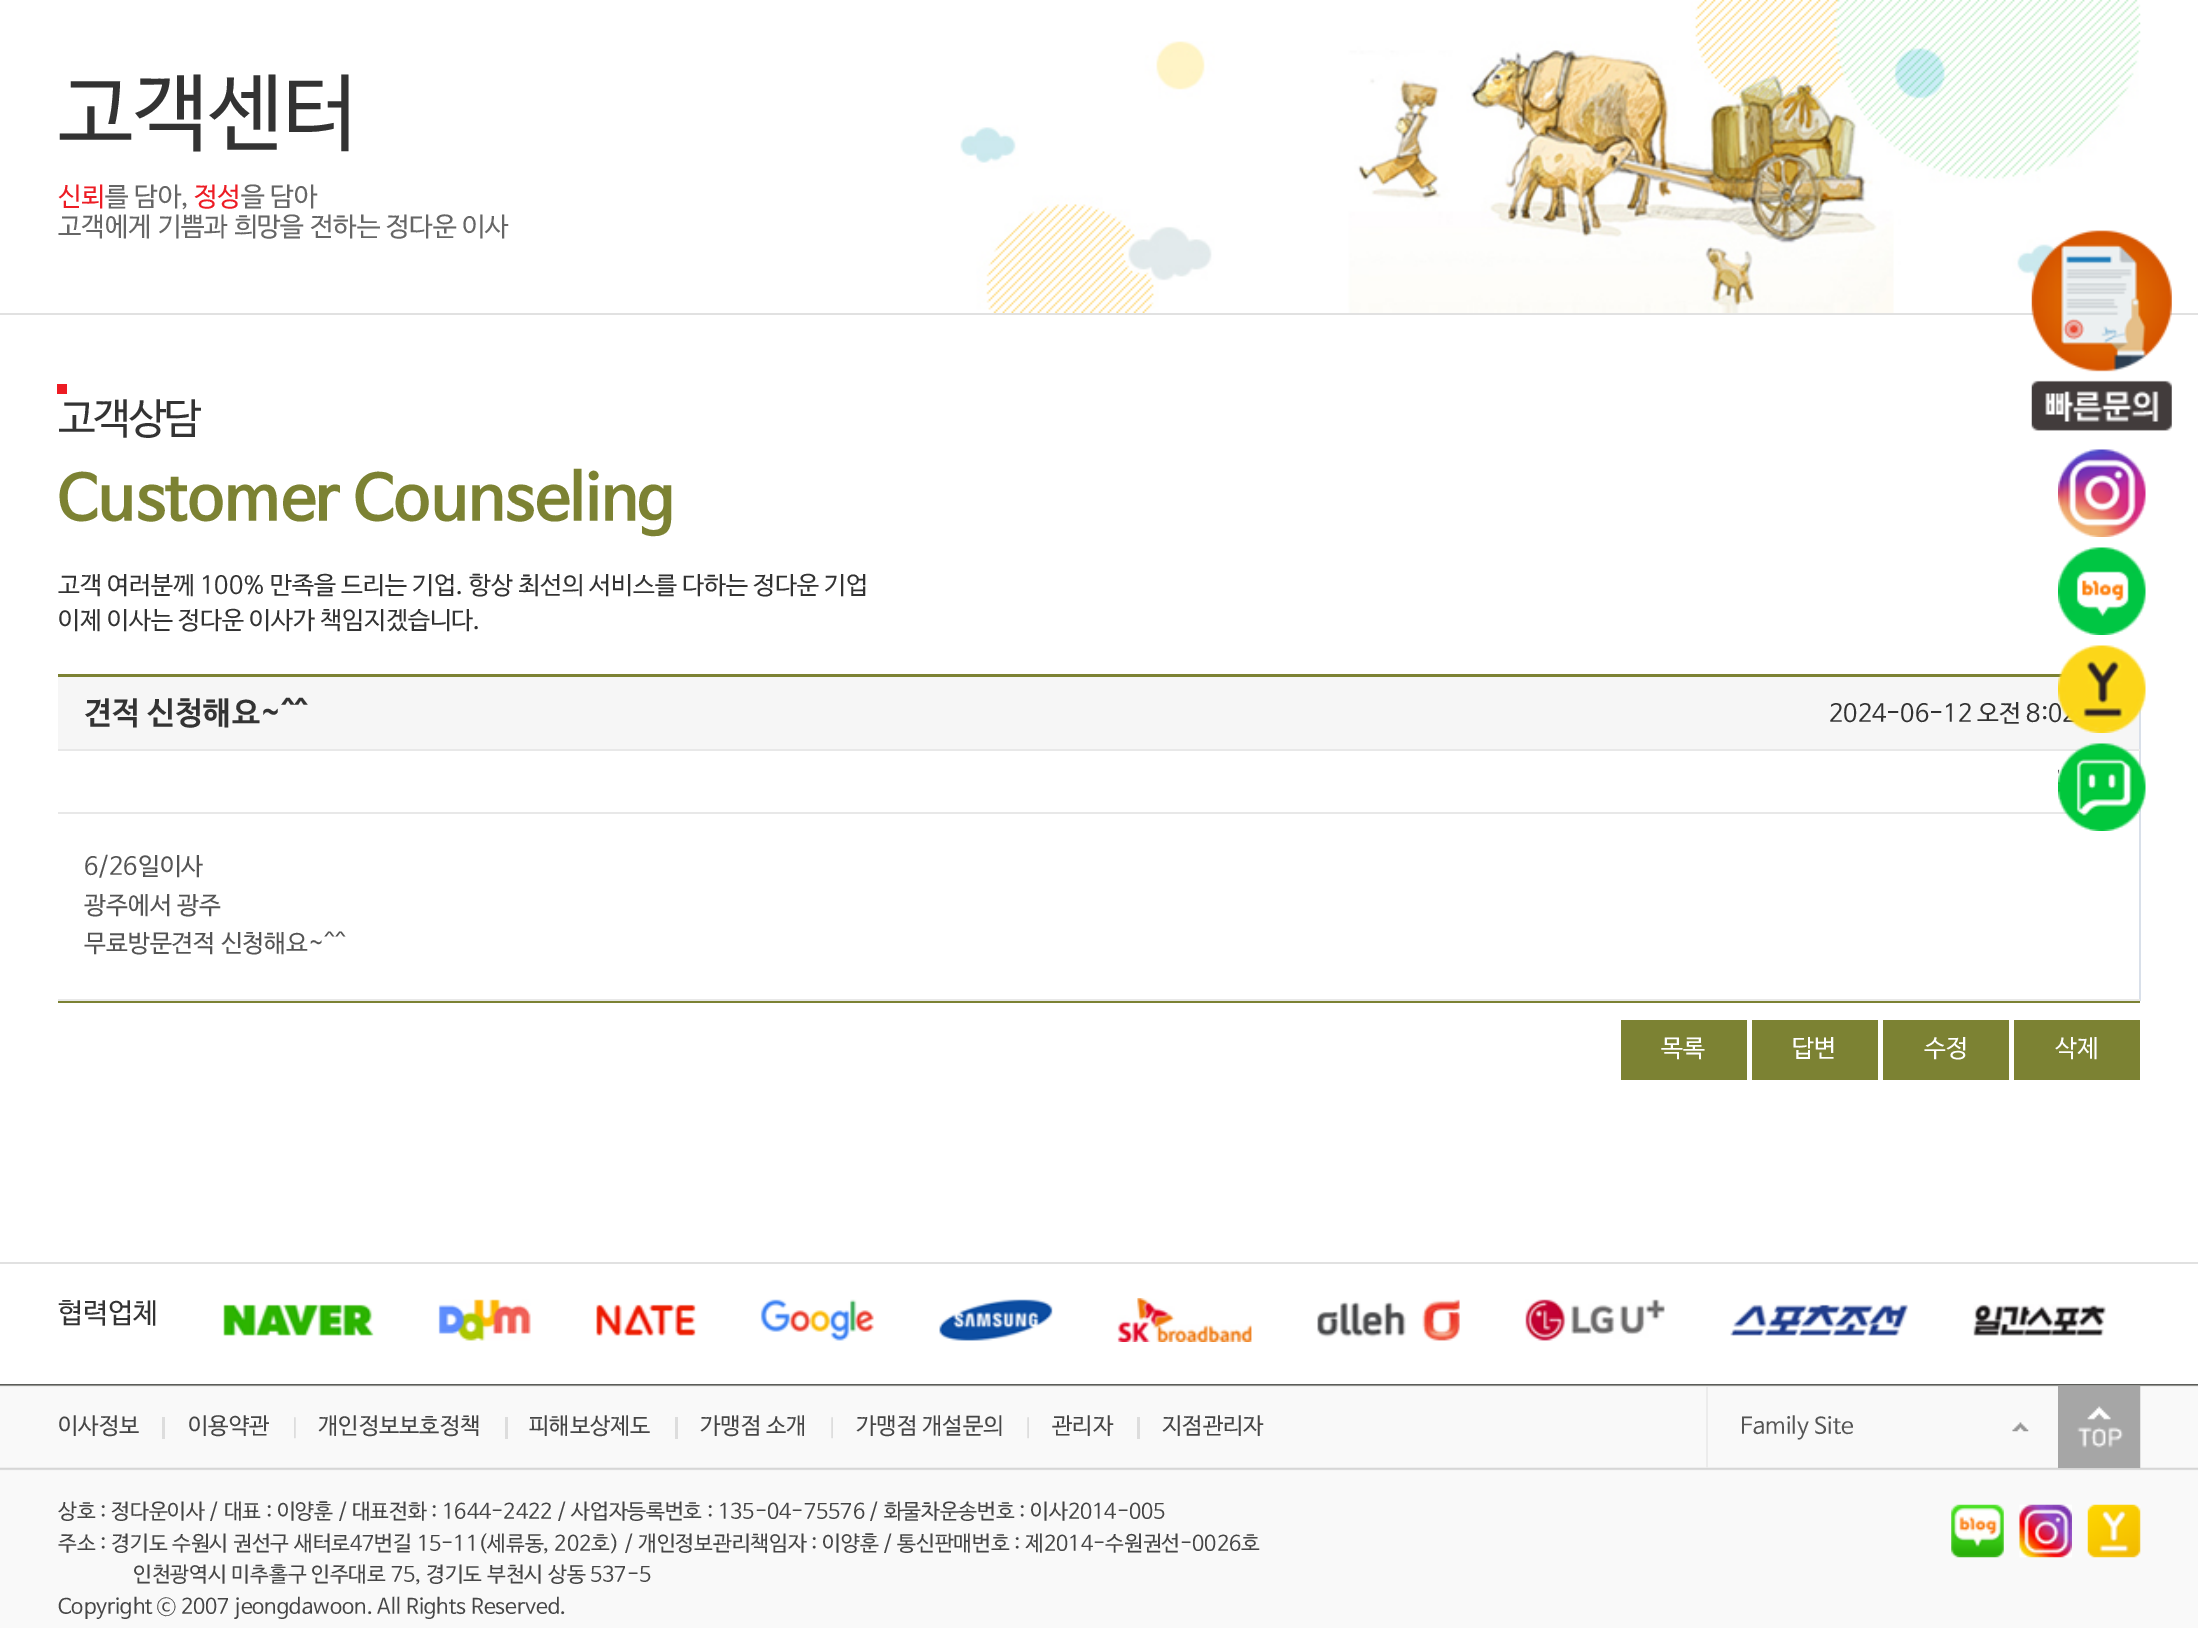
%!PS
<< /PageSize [2198 1628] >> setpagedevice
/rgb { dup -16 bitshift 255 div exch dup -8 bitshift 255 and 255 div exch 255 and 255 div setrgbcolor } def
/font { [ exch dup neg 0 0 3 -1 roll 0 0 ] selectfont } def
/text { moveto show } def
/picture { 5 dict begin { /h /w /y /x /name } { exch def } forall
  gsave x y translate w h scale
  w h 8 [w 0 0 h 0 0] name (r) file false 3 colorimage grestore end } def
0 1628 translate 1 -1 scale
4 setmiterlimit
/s1 { /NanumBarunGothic-Regular 84 font 16#333333 rgb } def
/s2 { /NanumBarunGothic-Regular 26.25 font 16#ED1C24 rgb } def
/s3 { /NanumBarunGothic-Regular 26.25 font 16#666666 rgb } def
/s4 { /NanumBarunGothic-Bold 63 font 16#7C8233 rgb } def
/s5 { /NanumBarunGothic-Regular 24.5 font 16#333333 rgb } def
/s6 { /NanumBarunGothic-Bold 31.5 font 16#333333 rgb } def
/s7 { /NanumBarunGothic-Regular 24.5 font 16#555555 rgb } def
/s8 { /NanumBarunGothic-Regular 24.5 font 16#FFFFFF rgb } def
/s9 { /NanumBarunGothic-Regular 28 font 16#333333 rgb } def
/s10 { /NanumBarunGothic-Regular 22.75 font 16#464646 rgb } def
/s11 { /NanumBarunGothic-Regular 22.75 font 16#555555 rgb } def
/s12 { /NanumBarunGothic-Regular 21 font 16#464646 rgb } def
16#FFFFFF rgb
0 0 2198 1628 rectfill
16#E1E1E1 rgb
0 313 2198 2 rectfill
(pic1.raw) 960 0 1181 313 picture
s1
(고객센터) 58 140 text
s2
(신뢰) 58 205 text
s3
(를 담아,) 105 205 text
s2
(정성) 194 205 text
s3
(을 담아) 241 205 text
(고객에게 기쁨과 희망을 전하는 정다운 이사) 58 235 text
16#ED1C24 rgb
57 384 10 10 rectfill
/NanumBarunGothic-Regular 42 font
16#333333 rgb
58 432 moveto -2 0 (고객상담) ashow
s4
(Customer Counseling) 58 518 text
s5
(고객 여러분께 100% 만족을 드리는 기업. 항상 최선의 서비스를 다하는 정다운 기업) 58 593 text
(이제 이사는 정다운 이사가 책임지겠습니다.) 58 628 text
16#7C8233 rgb
58 674 2004 3 rectfill
58 1001 2082 2 rectfill
16#F6F6F6 rgb
58 677 2081 72 rectfill
16#D9E0EA rgb
2139 704 2 297 rectfill
16#E8E8E8 rgb
58 749 2082 2 rectfill
s6
(견적 신청해요~^^) 84 723 text
s5
(2024-06-12 오전 8:0) 1829 721 text
16#E8E8E8 rgb
58 812 2082 2 rectfill
58 999 2082 2 rectfill
s7
(6/26일이사) 84 874 text
(광주에서 광주) 84 913 text
(무료방문견적 신청해요~^^) 84 951 text
16#7C8233 rgb
1621 1020 126 60 rectfill
s8
(목록) 1661 1056 text
16#7C8233 rgb
1752 1020 126 60 rectfill
s8
(답변) 1792 1056 text
16#7C8233 rgb
1883 1020 126 60 rectfill
s8
(수정) 1924 1056 text
16#7C8233 rgb
2014 1020 126 60 rectfill
s8
(삭제) 2055 1056 text
(pic2.raw) 2031 230 141 201 picture
(pic3.raw) 2058 449 88 88 picture
(pic4.raw) 2058 547 88 88 picture
(pic5.raw) 2058 645 88 88 picture
(pic6.raw) 2058 743 88 88 picture
16#E1E1E1 rgb
0 1262 2198 2 rectfill
s9
(협력업체) 58 1322 text
(pic7.raw) 223 1304 151 32 picture
(pic8.raw) 438 1299 93 42 picture
(pic9.raw) 596 1304 100 32 picture
(pic10.raw) 760 1299 114 42 picture
(pic11.raw) 939 1299 114 42 picture
(pic12.raw) 1117 1298 135 44 picture
(pic13.raw) 1317 1299 143 42 picture
(pic14.raw) 1525 1299 140 42 picture
(pic15.raw) 1730 1304 178 32 picture
(pic16.raw) 1973 1304 133 32 picture
(pic17.raw) 0 1384 2198 244 picture
s10
(이사정보) 58 1433 text
16#DDDDDD rgb
162 1417 3 22 rectfill
s10
(이용약관) 188 1433 text
(pic18.raw) 294 1417 2 22 picture
(개인정보보호정책) 318 1433 text
16#DDDDDD rgb
505 1417 3 22 rectfill
s10
(피해보상제도) 529 1433 text
16#DDDDDD rgb
675 1417 3 22 rectfill
s10
(가맹점 소개) 700 1433 text
(pic19.raw) 831 1417 2 22 picture
(가맹점 개설문의) 856 1433 text
(pic19.raw) 1027 1417 2 22 picture
(관리자) 1052 1433 text
16#DDDDDD rgb
1137 1417 3 22 rectfill
s10
(지점관리자) 1162 1433 text
16#ECECEC rgb
1706 1386 2 82 rectfill
(pic20.raw) 2012 1422 17 10 picture
s11
(Family Site) 1740 1433 text
(pic21.raw) 2058 1385 83 83 picture
s12
(상호 : 정다운이사 / 대표 : 이양훈 / 대표전화 : 1644-2422 / 사업자등록번호 : 135-04-75576 / 화물차운송번호 : 이사2014-005) 58 1518 text
(주소 : 경기도 수원시 권선구 새터로47번길 15-11\(세류동, 202호\) / 개인정보관리책임자 : 이양훈 / 통신판매번호 : 제2014-수원권선-0026호) 58 1550 text
(인천광역시 미추홀구 인주대로 75, 경기도 부천시 상동 537-5) 133 1581 text
(Copyright ⓒ 2007 jeongdawoon. All Rights Reserved.) 58 1613 text
(pic22.raw) 1951 1504 53 54 picture
(pic23.raw) 2019 1504 53 54 picture
(pic24.raw) 2087 1504 54 54 picture
showpage
